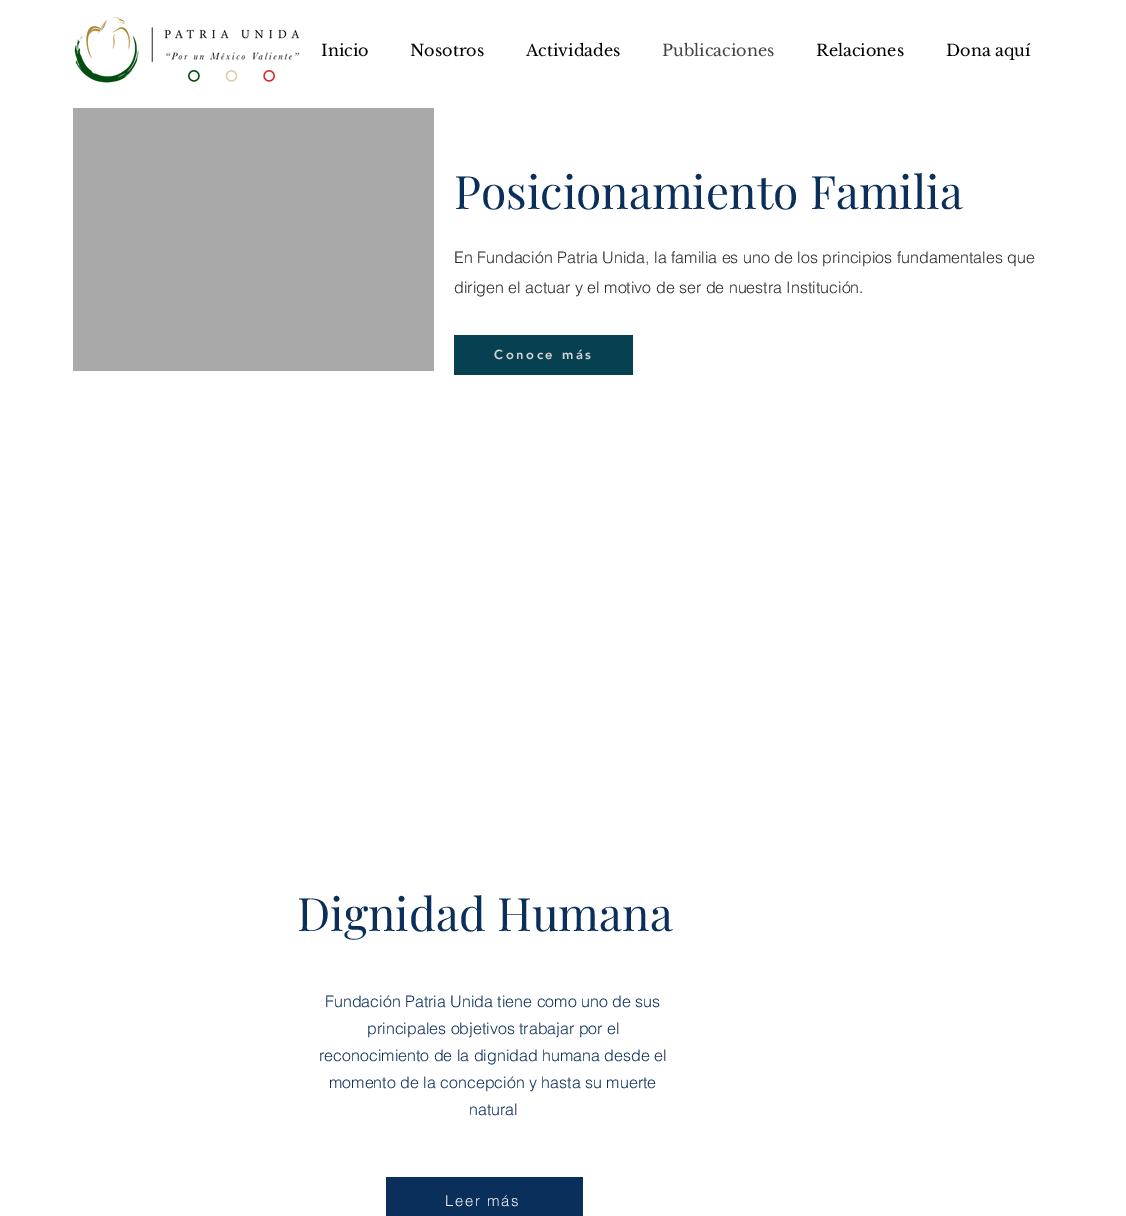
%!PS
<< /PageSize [1126 1216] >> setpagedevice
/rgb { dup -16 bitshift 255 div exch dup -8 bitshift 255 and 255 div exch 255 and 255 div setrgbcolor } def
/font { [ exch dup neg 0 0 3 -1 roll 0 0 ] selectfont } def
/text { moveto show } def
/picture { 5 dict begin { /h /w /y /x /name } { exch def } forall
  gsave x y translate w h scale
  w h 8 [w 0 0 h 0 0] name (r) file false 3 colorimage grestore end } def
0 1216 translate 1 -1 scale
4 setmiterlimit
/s1 { /LibreBaskerville-Regular 16 font 16#000000 rgb } def
/s2 { /LibreBaskerville-Regular 16 font 16#444444 rgb } def
/s3 { /PlayfairDisplay-Regular 46 font 16#0B2F5B rgb } def
/s4 { /helvetica-Light 16 font 16#292929 rgb } def
/s5 { /helvetica-Light 16 font 16#0B2F5B rgb } def
16#FFFFFF rgb
0 0 1126 1216 rectfill
(pic1.raw) 74 17 226 66 picture
s1
(Inicio) 321 56 text
(Nosotros) 410 56 text
(Actividades) 526 56 text
s2
(Publicaciones) 662 56 text
s1
(Relaciones) 816 56 text
(Dona aquí) 946 56 text
16#A9A9A9 rgb
73 108 361 263 rectfill
s3
(Posicionamiento Familia) 454 209 text
s4
(En Fundación Patria Unida, la familia es uno de los principios fundamentales que) 454 263 text
(dirigen el actuar y el motivo de ser de nuestra Institución.) 454 293 text
16#074151 rgb
454 335 179 40 rectfill
/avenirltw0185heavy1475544-Black 13 font
16#D4D4D4 rgb
494 359 moveto 2.6 0 (Conoce más) ashow
s3
(Dignidad Humana) 297 931 text
s5
(Fundación Patria Unida tiene como uno de sus) 325 1007 text
(principales objetivos trabajar por el) 367 1034 text
(reconocimiento de la dignidad humana desde el) 319 1061 text
(momento de la concepción y hasta su muerte) 329 1088 text
(natural) 469 1115 text
386 1177 197 39 rectfill
/helvetica-Light 15 font
16#FFFFFF rgb
445 1206 moveto 1.5 0 (Leer más) ashow
showpage
